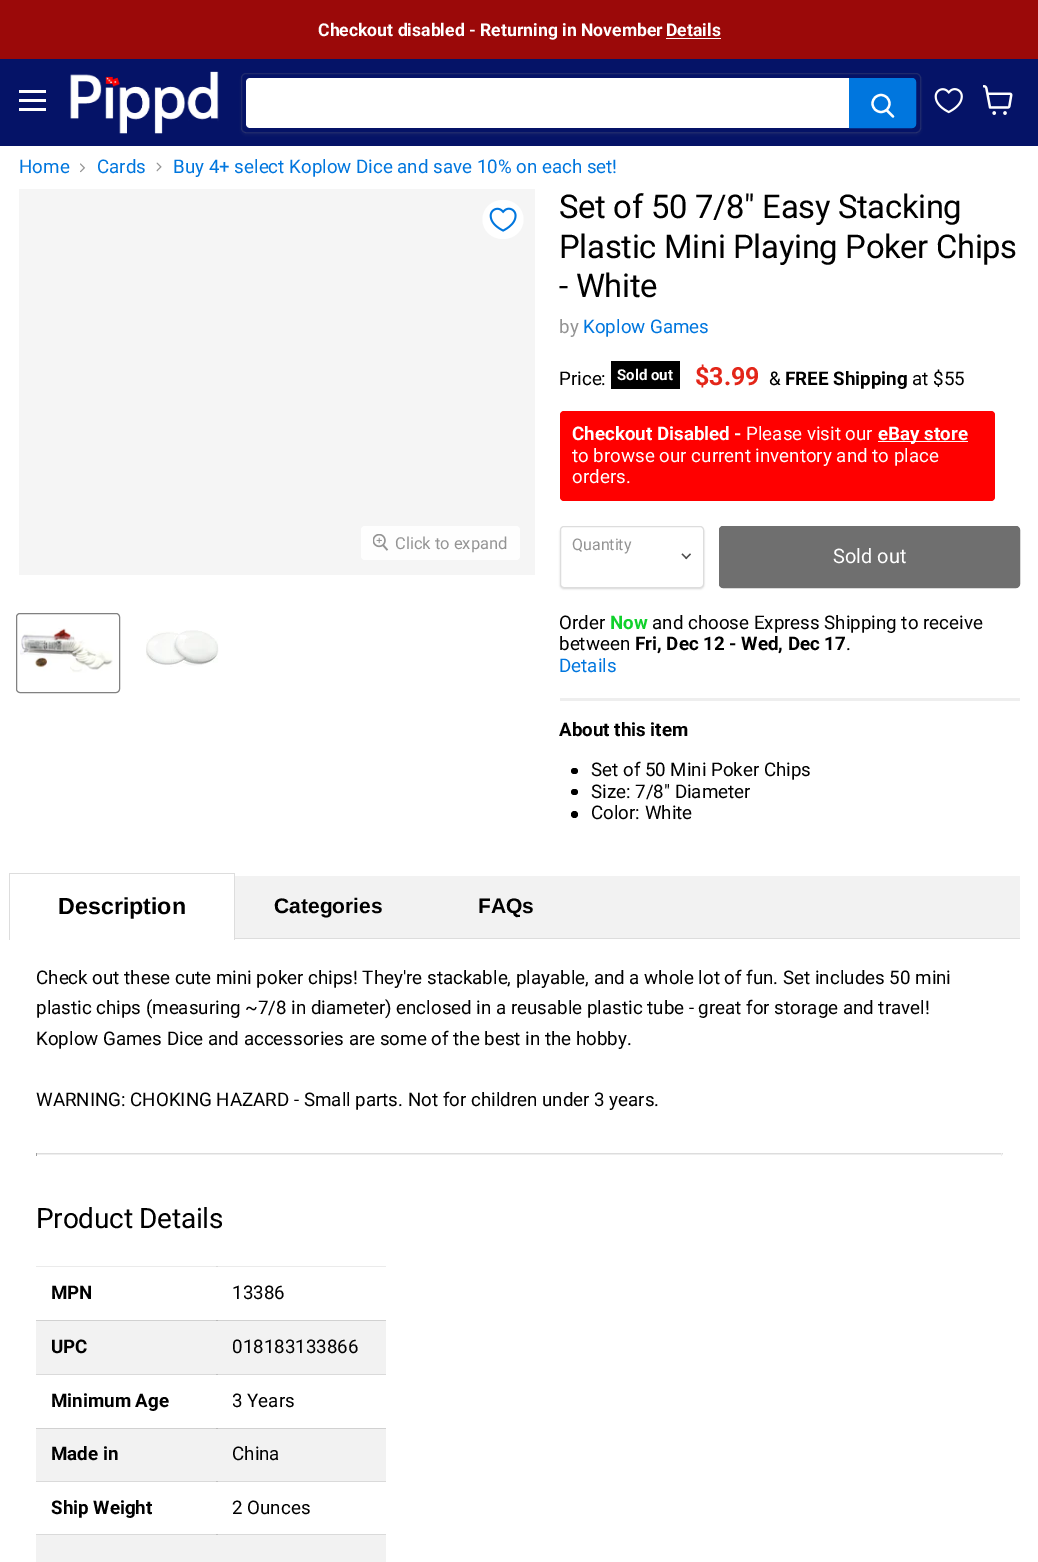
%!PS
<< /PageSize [1038 1562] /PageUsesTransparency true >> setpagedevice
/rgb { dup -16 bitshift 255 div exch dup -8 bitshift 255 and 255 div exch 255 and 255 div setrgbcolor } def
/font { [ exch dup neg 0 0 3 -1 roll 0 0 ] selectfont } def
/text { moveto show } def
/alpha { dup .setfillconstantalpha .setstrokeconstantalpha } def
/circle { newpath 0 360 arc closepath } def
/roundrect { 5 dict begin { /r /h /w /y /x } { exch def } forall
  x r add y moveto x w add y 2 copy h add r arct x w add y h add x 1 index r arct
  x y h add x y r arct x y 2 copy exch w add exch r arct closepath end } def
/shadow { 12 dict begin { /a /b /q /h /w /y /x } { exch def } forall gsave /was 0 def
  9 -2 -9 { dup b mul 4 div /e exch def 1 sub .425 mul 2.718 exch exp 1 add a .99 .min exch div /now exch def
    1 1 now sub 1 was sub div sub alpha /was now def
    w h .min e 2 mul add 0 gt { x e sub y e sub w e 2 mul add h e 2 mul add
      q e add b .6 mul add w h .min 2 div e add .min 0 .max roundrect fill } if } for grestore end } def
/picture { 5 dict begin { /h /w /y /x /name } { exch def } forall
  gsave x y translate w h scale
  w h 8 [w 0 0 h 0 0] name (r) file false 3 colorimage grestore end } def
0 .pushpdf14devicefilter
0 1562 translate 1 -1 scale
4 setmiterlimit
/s1 { /Roboto-Bold 17.6 font 16#FFFFFF rgb } def
/s2 { /Roboto-Regular 18.75 font 16#0076DE rgb } def
/s3 { /Roboto-Regular 16.5 font 16#949494 rgb } def
/s4 { /Roboto-Regular 18.75 font 16#949494 rgb } def
/s5 { /Roboto-Regular 18.75 font 16#000000 rgb } def
/s6 { /Roboto-Bold 15 font 16#FFFFFF rgb } def
/s7 { /Roboto-Bold 25 font 16#E32619 rgb } def
/s8 { /Roboto-Bold 18.75 font 16#000000 rgb } def
/s9 { /Roboto-Bold 18.75 font 16#FFFFFF rgb } def
/s10 { /Roboto-Regular 18.75 font 16#FFFFFF rgb } def
/s11 { /Roboto-Regular 16 font 16#949494 rgb } def
/s12 { /Roboto-Regular 20 font 16#FFFFFF rgb } def
/s13 { /Roboto-Bold 18.75 font 16#10D12C rgb } def
/s14 { /LiberationSans-Bold 23.25 font 16#000000 rgb } def
/s15 { /LiberationSans-Bold 21 font 16#000000 rgb } def
16#FFFFFF rgb
0 0 1038 1562 rectfill
16#EBEBEB rgb
36 1266 350 1 rectfill
16#DADADA rgb
36 1374 350 1 rectfill
36 1481 350 1 rectfill
36 1534 350 1 rectfill
16#9B0909 rgb
0 0 1038 59 rectfill
s1
(Checkout disabled - Returning in November) 318 36 text
(Details) 666 36 text
666 38 55 1 rectfill
16#051367 rgb
0 59 1038 87 rectfill
16#FFFFFF rgb
19 90 27 3 rectfill
19 99 27 3 rectfill
19 108 27 3 rectfill
(pic1.raw) 70 71 149 63 picture
gsave
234 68 moveto 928 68 lineto 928 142 lineto 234 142 lineto closepath 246 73 moveto 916 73 lineto 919 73 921 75 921 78 curveto 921 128 lineto 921 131 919 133 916 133 curveto 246 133 lineto 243 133 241 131 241 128 curveto 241 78 lineto 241 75 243 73 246 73 curveto closepath eoclip newpath
16#808080 rgb
241 75 680 60 5 2 0.11 shadow
grestore
0.2 alpha
16#808080 rgb
241.5 73.5 679 59 4.5 roundrect stroke
1 alpha
16#FFFFFF rgb
250 78 moveto 849 78 lineto 849 128 lineto 250 128 lineto 248 128 246 126 246 124 curveto 246 82 lineto 246 80 248 78 250 78 curveto closepath fill
16#0076DE rgb
849.5 78.5 moveto 912 78.5 lineto 914 78.5 915.5 80 915.5 82 curveto 915.5 124 lineto 915.5 126 914 127.5 912 127.5 curveto 849.5 127.5 lineto closepath gsave fill grestore
stroke
16#FFFFFF rgb
2.2 setlinewidth
1 setlinecap
893 116.5 moveto 887 110.5 lineto stroke
0 setlinecap
881 103.5 8.5 circle stroke
(pic2.raw) 934 88 29 26 picture
(pic3.raw) 983 85 30 30 picture
s2
(Home) 19 173 text
(pic4.raw) 80 163 6 10 picture
(Cards) 97 173 text
(pic5.raw) 156 162 6 10 picture
(Buy 4+ select Koplow Dice and save 10% on each set!) 173 173 text
16#F5F5F5 rgb
19 189 516 386 rectfill
16#FFFFFF rgb
503 200 moveto 514.5 200 523.5 208.5 523.5 219.5 curveto 523.5 230.5 514.5 239 503 239 curveto 491.5 239 482.5 230.5 482.5 219.5 curveto 482.5 208.5 491.5 200 503 200 curveto closepath fill
(pic6.raw) 489 207 28 25 picture
16#FEFEFE rgb
361 526 159 34 4 roundrect fill
(pic7.raw) 373 534 16 17 picture
s3
(Click to expand) 395 549 text
16#818181 rgb
1 setlinewidth
16.5 613.5 103 79 3.5 roundrect stroke
(pic8.raw) 20 628 93 45 picture
(pic9.raw) 146 630 73 37 picture
/Roboto-Regular 32.75 font
16#000000 rgb
559 218 moveto -0.3 0 (Set of 50 7/8" Easy Stacking) ashow
559 258 moveto -0.3 0 (Plastic Mini Playing Poker Chips) ashow
559 297 moveto -0.3 0 (- White) ashow
s4
(by) 559 333 text
s2
(Koplow Games) 583 333 text
s5
(Price:) 559 385 text
611 361 69 28 rectfill
s6
(Sold out) 617 380 text
s7
($3.99) 695 385 text
s5
(&) 769 385 text
s8
(FREE Shipping) 785 385 text
s5
(at $55) 912 385 text
16#FF0000 rgb
560 411 435 90 4 roundrect fill
s9
(Checkout Disabled -) 572 440 text
s10
(Please visit our) 746 440 text
878 441 90 1 rectfill
s9
(eBay store) 878 440 text
s10
(to browse our current inventory and to place) 572 462 text
(orders.) 572 483 text
16#000000 rgb
560 528 144 61 4 1 0.15 shadow
16#FFFFFF rgb
560.5 526.5 143 61 3.5 roundrect gsave fill grestore
16#DDDDDD rgb
stroke
s11
(Quantity) 572 550 text
(pic10.raw) 681 553 10 7 picture
16#6F6F6F rgb
719.5 526.5 300 61 3.5 roundrect gsave fill grestore
stroke
s12
(Sold out) 833 563 text
s5
(Order) 559 629 text
s13
(Now) 610 629 text
s5
(and choose Express Shipping to receive) 652 629 text
(between) 559 650 text
s8
(Fri, Dec 12 - Wed, Dec 17) 635 650 text
s5
(.) 846 650 text
s2
(Details) 559 672 text
16#EEEEEE rgb
560 698 460 3 rectfill
s8
(About this item) 559 736 text
571 768 7 6 3 roundrect fill
s5
(Set of 50 Mini Poker Chips) 591 776 text
571 789 7 6 3 roundrect fill
(Size: 7/8" Diameter) 591 798 text
574.5 814.5 3.5 circle fill
(Color: White) 591 819 text
16#F2F2F2 rgb
235 876 785 62 rectfill
16#DDDDDD rgb
235 938 785 1 rectfill
9 873 226 1 rectfill
234 873 1 67 rectfill
9 873 1 67 rectfill
s14
(Description) 58 914 text
s15
(Categories) 274 913 text
(FAQs) 478 913 text
s5
(Check out these cute mini poker chips! They're stackable, playable, and a whole lot of fun. Set includes 50 mini) 36 984 text
(plastic chips \(measuring ~7/8 in diameter\) enclosed in a reusable plastic tube - great for storage and travel!) 36 1014 text
(Koplow Games Dice and accessories are some of the best in the hobby.) 36 1045 text
(WARNING: CHOKING HAZARD - Small parts. Not for children under 3 years.) 36 1106 text
16#DDDDDD rgb
36 1153 967 1 rectfill
16#EEEEEE rgb
1001 1153 1 3 rectfill
36 1154 967 1 rectfill
16#9F9F9F rgb
36 1153 1 3 rectfill
/Roboto-Regular 28 font
16#000000 rgb
36 1228 moveto -0.25 0 (Product Details) ashow
s8
(MPN) 51 1299 text
16#DADADA rgb
216 1266 2 1 rectfill
s5
(13386) 232 1299 text
16#F2F2F2 rgb
36 1321 350 53 rectfill
16#D1D1D1 rgb
36 1320 350 1 rectfill
s8
(UPC) 51 1353 text
16#B9B9B9 rgb
216 1320 2 1 rectfill
s5
(018183133866) 232 1353 text
s8
(Minimum Age) 51 1407 text
16#C0C0C0 rgb
216 1374 2 1 rectfill
s5
(3 Years) 232 1407 text
16#F2F2F2 rgb
36 1429 350 52 rectfill
16#D1D1D1 rgb
36 1428 350 1 rectfill
s8
(Made in) 51 1460 text
16#B9B9B9 rgb
216 1428 2 1 rectfill
s5
(China) 232 1460 text
s8
(Ship Weight) 51 1514 text
16#C0C0C0 rgb
216 1481 2 1 rectfill
s5
(2 Ounces) 232 1514 text
16#F2F2F2 rgb
36 1535 350 27 rectfill
16#C0C0C0 rgb
216 1534 2 1 rectfill
.poppdf14devicefilter showpage
